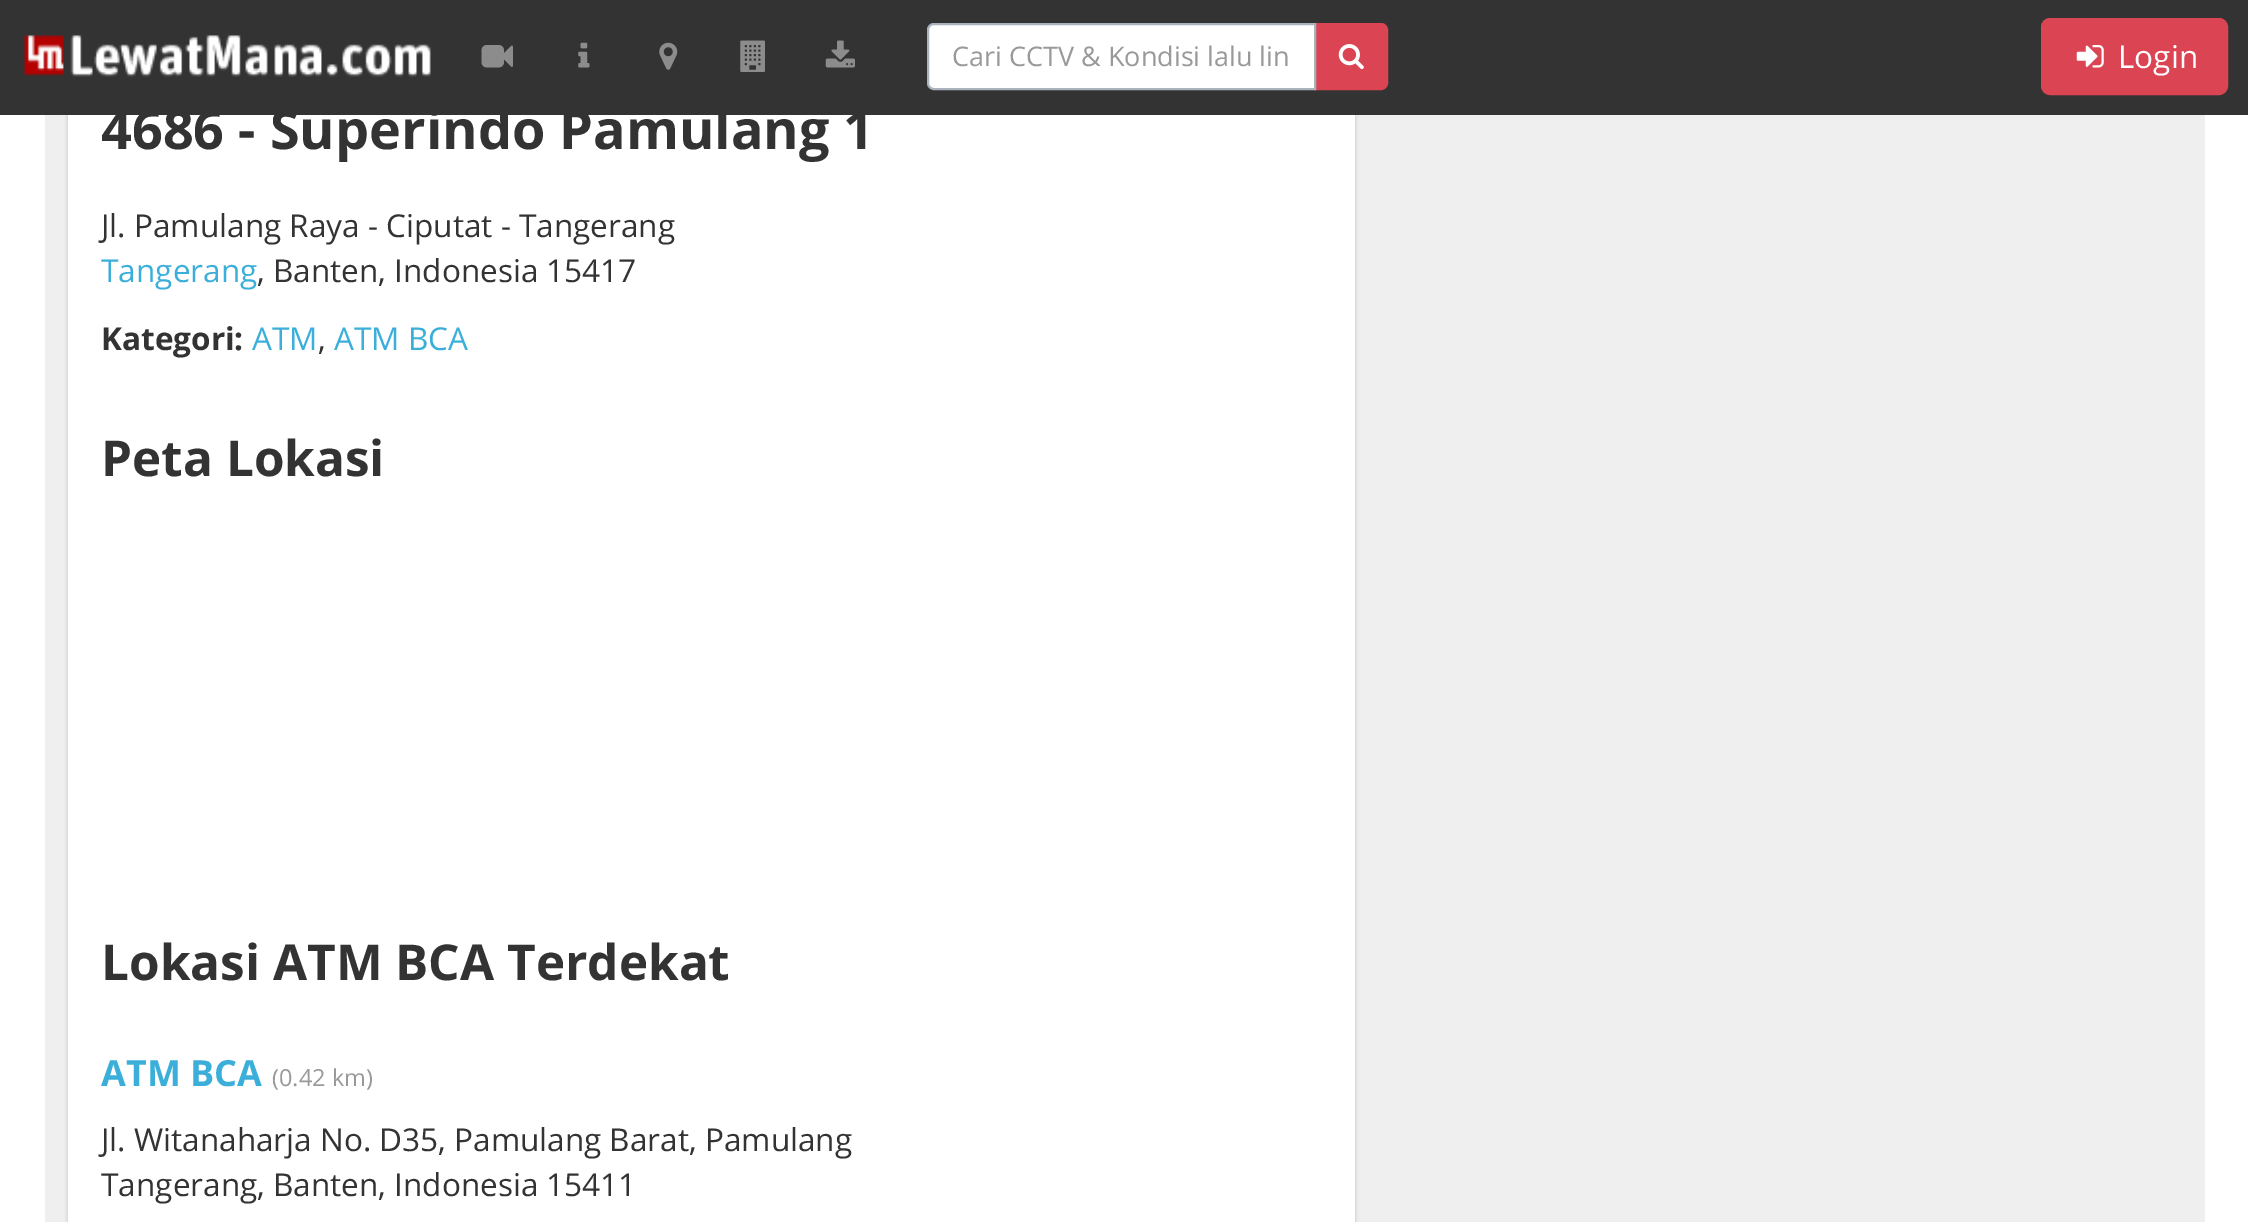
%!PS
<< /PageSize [2248 1222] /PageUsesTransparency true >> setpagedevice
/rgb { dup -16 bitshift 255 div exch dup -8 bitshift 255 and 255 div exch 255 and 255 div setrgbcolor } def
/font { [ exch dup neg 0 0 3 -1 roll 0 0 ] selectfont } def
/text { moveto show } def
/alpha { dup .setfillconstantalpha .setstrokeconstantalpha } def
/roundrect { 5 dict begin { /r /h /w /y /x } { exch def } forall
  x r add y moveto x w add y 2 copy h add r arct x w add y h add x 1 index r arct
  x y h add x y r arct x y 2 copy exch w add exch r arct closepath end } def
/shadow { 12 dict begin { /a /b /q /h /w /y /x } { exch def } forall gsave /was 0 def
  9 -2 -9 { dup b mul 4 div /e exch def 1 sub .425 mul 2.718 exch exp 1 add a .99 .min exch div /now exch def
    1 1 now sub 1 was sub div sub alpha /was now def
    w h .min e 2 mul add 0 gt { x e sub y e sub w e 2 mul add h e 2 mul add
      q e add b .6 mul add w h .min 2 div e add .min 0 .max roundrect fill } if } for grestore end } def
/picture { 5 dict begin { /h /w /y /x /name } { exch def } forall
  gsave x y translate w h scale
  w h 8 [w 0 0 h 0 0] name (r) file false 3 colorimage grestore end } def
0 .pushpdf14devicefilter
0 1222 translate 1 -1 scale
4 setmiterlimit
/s1 { /OpenSans-Regular 27 font 16#999999 rgb } def
/s2 { /OpenSans-Regular 31.5 font 16#FFFFFF rgb } def
/s3 { /OpenSans-Bold 54 font 16#333333 rgb } def
/s4 { /OpenSans-Regular 31.5 font 16#333333 rgb } def
/s5 { /OpenSans-Regular 31.5 font 16#3BAFDA rgb } def
/s6 { /OpenSans-Bold 31.5 font 16#333333 rgb } def
/s7 { /OpenSans-Bold 49.5 font 16#333333 rgb } def
/s8 { /OpenSans-Bold 36 font 16#3BAFDA rgb } def
/s9 { /OpenSans-Regular 23.5 font 16#999999 rgb } def
16#FFFFFF rgb
0 0 2248 1222 rectfill
16#EFEFEF rgb
45 115 2160 1107 rectfill
16#000000 rgb
68 68 1287 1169 9 2 0.2 shadow
16#333333 rgb
0 0 2248 115 rectfill
(pic1.raw) 24 35 407 42 picture
(pic2.raw) 481 45 32 23 picture
(pic3.raw) 578 42 12 26 picture
(pic4.raw) 659 42 19 28 picture
(pic5.raw) 740 40 25 32 picture
(pic6.raw) 825 40 30 28 picture
16#DA4453 rgb
1315 24 moveto 1381 24 lineto 1384.5 24 1387 26.5 1387 30 curveto 1387 83 lineto 1387 86.5 1384.5 89 1381 89 curveto 1315 89 lineto closepath gsave fill grestore
2 setlinewidth
stroke
16#FFFFFF rgb
934 24 moveto 1315 24 lineto 1315 89 lineto 934 89 lineto 930.5 89 928 86.5 928 83 curveto 928 30 lineto 928 26.5 930.5 24 934 24 curveto closepath gsave fill grestore
16#AAB2BD rgb
stroke
s1
(Cari CCTV & Kondisi lalu lin) 952 66 text
(pic7.raw) 1338 44 26 26 picture
16#DA4453 rgb
2042 19 185 75 8 roundrect gsave fill grestore
stroke
(pic8.raw) 2076 45 28 23 picture
s2
(Login) 2118 68 text
68 115 1287 1107 rectfill
s3
(4686 - Superindo Pamulang 1) 101 149 text
s4
(Jl. Pamulang Raya - Ciputat - Tangerang) 101 237 text
s5
(Tangerang) 101 282 text
s4
(, Banten, Indonesia 15417) 257 282 text
s6
(Kategori:) 101 350 text
s5
(ATM) 252 350 text
s4
(,) 318 350 text
s5
(ATM BCA) 334 350 text
s7
(Peta Lokasi) 101 476 text
(Lokasi ATM BCA Terdekat) 101 980 text
s8
(ATM BCA) 101 1086 text
s9
(\(0.42 km\)) 272 1086 text
s4
(Jl. Witanaharja No. D35, Pamulang Barat, Pamulang) 101 1151 text
(Tangerang, Banten, Indonesia 15411) 101 1196 text
.poppdf14devicefilter showpage
